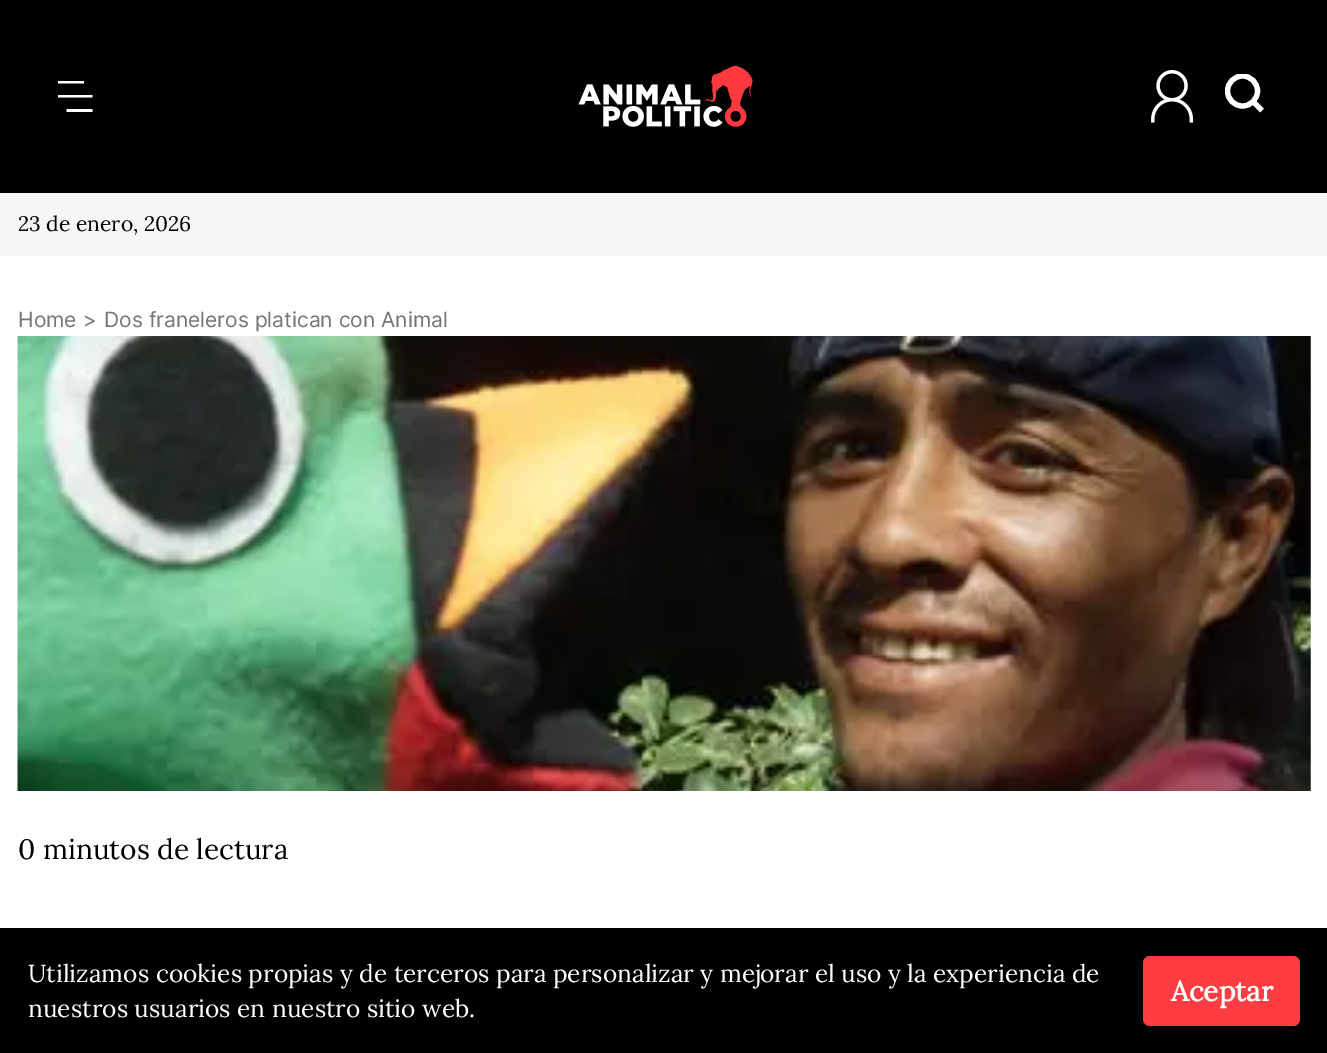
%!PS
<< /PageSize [1327 1053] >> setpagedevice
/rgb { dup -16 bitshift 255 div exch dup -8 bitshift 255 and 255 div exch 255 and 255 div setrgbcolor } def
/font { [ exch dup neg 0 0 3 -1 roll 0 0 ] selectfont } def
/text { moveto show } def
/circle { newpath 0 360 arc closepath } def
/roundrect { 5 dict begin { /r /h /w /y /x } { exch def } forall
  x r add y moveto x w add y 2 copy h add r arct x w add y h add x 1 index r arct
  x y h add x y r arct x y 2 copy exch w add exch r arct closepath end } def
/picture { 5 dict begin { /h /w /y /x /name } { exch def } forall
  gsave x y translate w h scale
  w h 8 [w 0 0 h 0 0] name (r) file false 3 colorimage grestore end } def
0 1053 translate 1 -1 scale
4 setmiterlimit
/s1 { /Lora-Regular 21 font 16#000000 rgb } def
/s2 { /Inter-Regular 21 font 16#757575 rgb } def
/s3 { /Lora-Regular 28 font 16#000000 rgb } def
/s4 { /Lora-Regular 24.5 font 16#FFFFFF rgb } def
/s5 { /Lora-Bold 28 font 16#FFFFFF rgb } def
16#FFFFFF rgb
0 0 1327 1053 rectfill
16#000000 rgb
0 0 1327 193 rectfill
(pic1.raw) 578 65 175 62 picture
gsave
56 81 39 31 rectclip
16#FFFFFF rgb
58 80.5 moveto 84 80.5 lineto 84 83.5 lineto 58 83.5 lineto closepath 58 95 moveto 92.5 95 lineto 92.5 97.5 lineto 58 97.5 lineto closepath 66.5 109 moveto 92.5 109 lineto 92.5 112 lineto 66.5 112 lineto closepath fill
grestore
(pic2.raw) 1151 70 43 53 picture
gsave
1225 74 47 47 rectclip
16#FFFFFF rgb
5.2 setlinewidth
1242.5 91 15 circle stroke
grestore
16#FFFFFF rgb
5.2 setlinewidth
1253 101.5 moveto 1262 110.5 lineto stroke
16#F6F6F6 rgb
0 193 1327 63 rectfill
s1
(23 de enero, 2026) 18 231 text
s2
(Home) 18 327 text
(>) 83 327 text
(Dos franeleros platican con Animal) 104 327 text
(pic3.raw) 17 336 1294 455 picture
s3
(0 minutos de lectura) 18 859 text
0 928 1327 125 rectfill
s4
(Utilizamos cookies propias y de terceros para personalizar y mejorar el uso y la experiencia de) 28 982 text
(nuestros usuarios en nuestro sitio web.) 28 1017 text
16#FF3C41 rgb
1143 956 157 70 7 roundrect fill
s5
(Aceptar) 1171 1001 text
showpage
